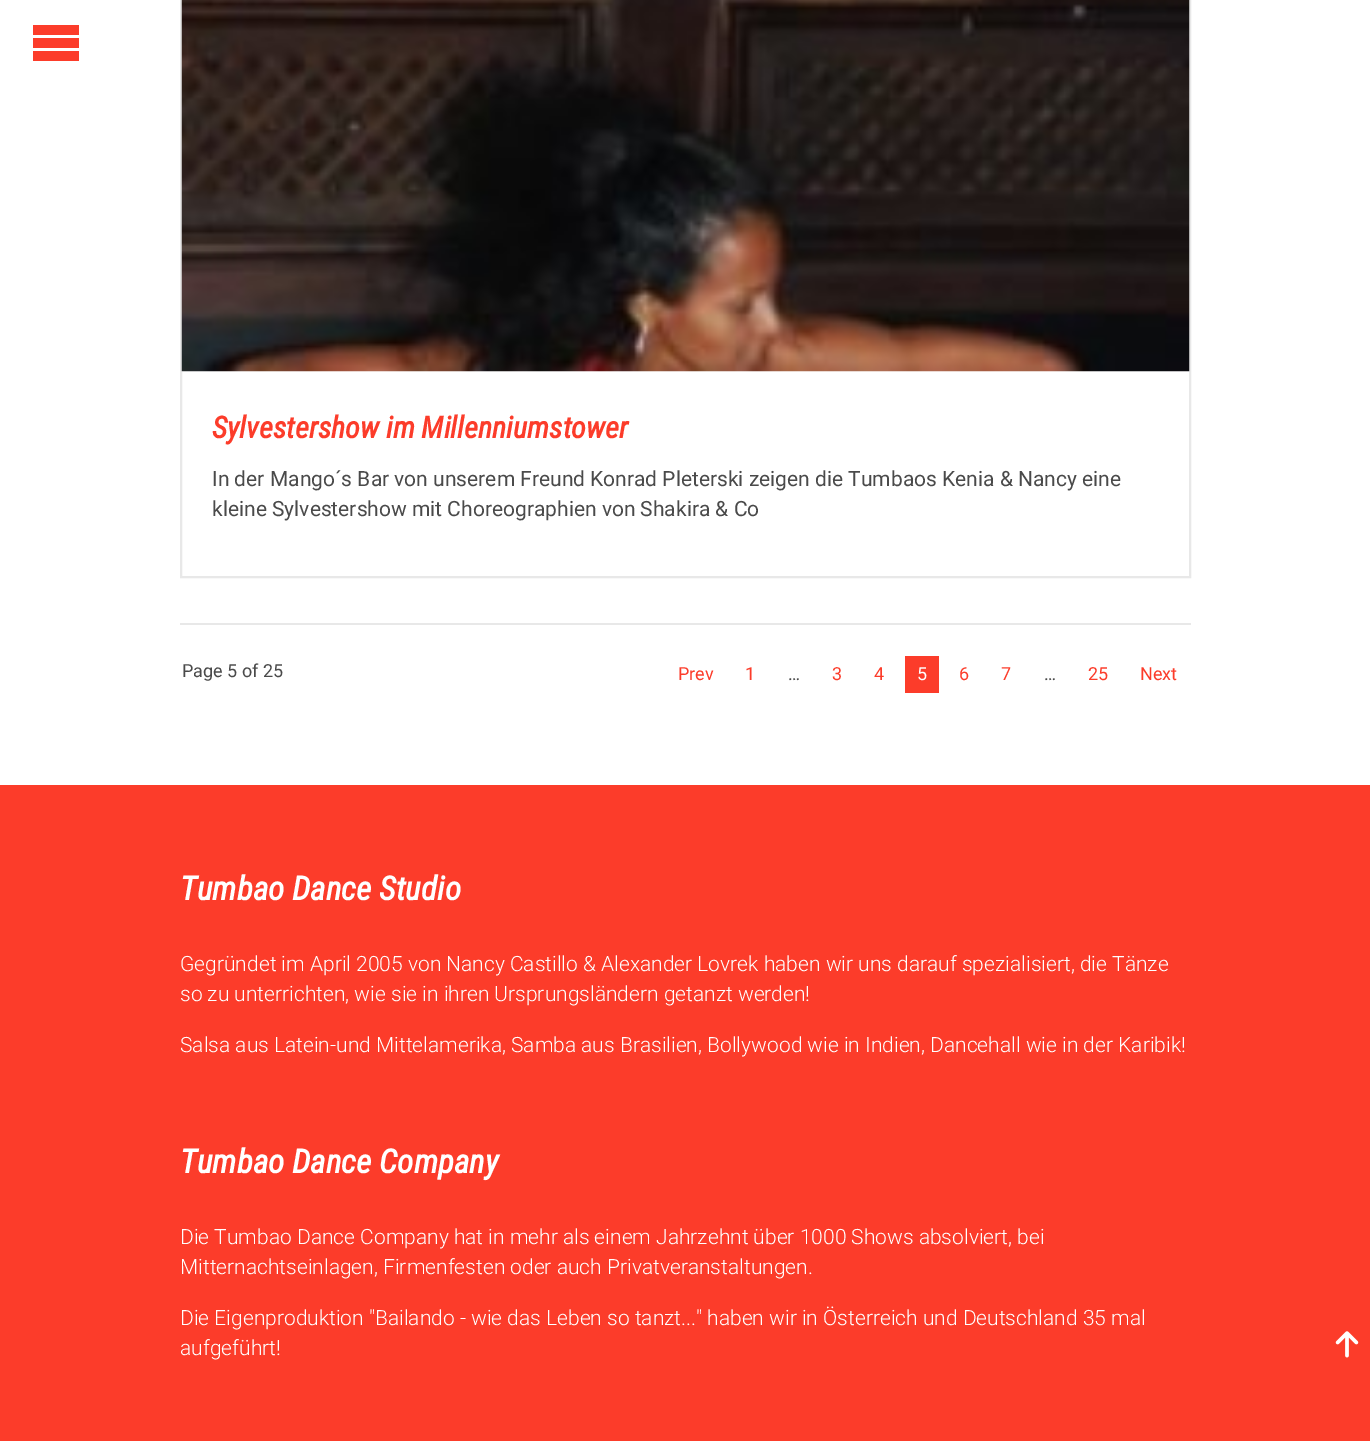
%!PS
<< /PageSize [1370 1441] >> setpagedevice
/rgb { dup -16 bitshift 255 div exch dup -8 bitshift 255 and 255 div exch 255 and 255 div setrgbcolor } def
/font { [ exch dup neg 0 0 3 -1 roll 0 0 ] selectfont } def
/text { moveto show } def
/picture { 5 dict begin { /h /w /y /x /name } { exch def } forall
  gsave x y translate w h scale
  w h 8 [w 0 0 h 0 0] name (r) file false 3 colorimage grestore end } def
0 1441 translate 1 -1 scale
4 setmiterlimit
/s1 { /RobotoCondensed-BoldItalic 30 font 16#FC3C2A rgb } def
/s2 { /Roboto-Regular 21 font 16#4A4A4A rgb } def
/s3 { /Roboto-Regular 18 font 16#4A4A4A rgb } def
/s4 { /Roboto-Regular 18 font 16#FC3C2A rgb } def
/s5 { /Roboto-Regular 18 font 16#FFFFFF rgb } def
/s6 { /RobotoCondensed-BoldItalic 33 font 16#FFFFFF rgb } def
/s7 { /Roboto-Light 21 font 16#FFFFFF rgb } def
16#FFFFFF rgb
0 0 1370 1441 rectfill
16#FC3C2A rgb
33 25 moveto 79 25 lineto 79 35 lineto 33 35 lineto closepath 33 38 moveto 79 38 lineto 79 48 lineto 33 48 lineto closepath 33 51 moveto 79 51 lineto 79 61 lineto 33 61 lineto closepath fill
16#E8E8E8 rgb
2 setlinewidth
181 -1 1009 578 rectstroke
(pic1.raw) 181 0 1009 372 picture
s1
(Sylvestershow im Millenniumstower) 212 438 text
s2
(In der Mango´s Bar von unserem Freund Konrad Pleterski zeigen die Tumbaos Kenia & Nancy eine) 212 486 text
(kleine Sylvestershow mit Choreographien von Shakira & Co) 212 516 text
16#E8E8E8 rgb
180 623 1011 2 rectfill
s3
(Page 5 of 25) 182 677 text
s4
(Prev) 678 680 text
(1) 745 680 text
s3
(…) 788 680 text
s4
(3) 832 680 text
(4) 874 680 text
905 656 34 37 rectfill
s5
(5) 917 680 text
s4
(6) 959 680 text
(7) 1001 680 text
s3
(…) 1044 680 text
s4
(25) 1088 680 text
(Next) 1140 680 text
0 785 1370 656 rectfill
s6
(Tumbao Dance Studio) 180 900 text
s7
(Gegründet im April 2005 von Nancy Castillo & Alexander Lovrek haben wir uns darauf spezialisiert, die Tänze) 180 971 text
(so zu unterrichten, wie sie in ihren Ursprungsländern getanzt werden!) 180 1001 text
(Salsa aus Latein-und Mittelamerika, Samba aus Brasilien, Bollywood wie in Indien, Dancehall wie in der Karibik!) 180 1052 text
s6
(Tumbao Dance Company) 180 1173 text
s7
(Die Tumbao Dance Company hat in mehr als einem Jahrzehnt über 1000 Shows absolviert, bei) 180 1244 text
(Mitternachtseinlagen, Firmenfesten oder auch Privatveranstaltungen.) 180 1274 text
(Die Eigenproduktion "Bailando - wie das Leben so tanzt..." haben wir in Österreich und Deutschland 35 mal) 180 1325 text
(aufgeführt!) 180 1355 text
(pic2.raw) 1335 1331 24 27 picture
showpage
